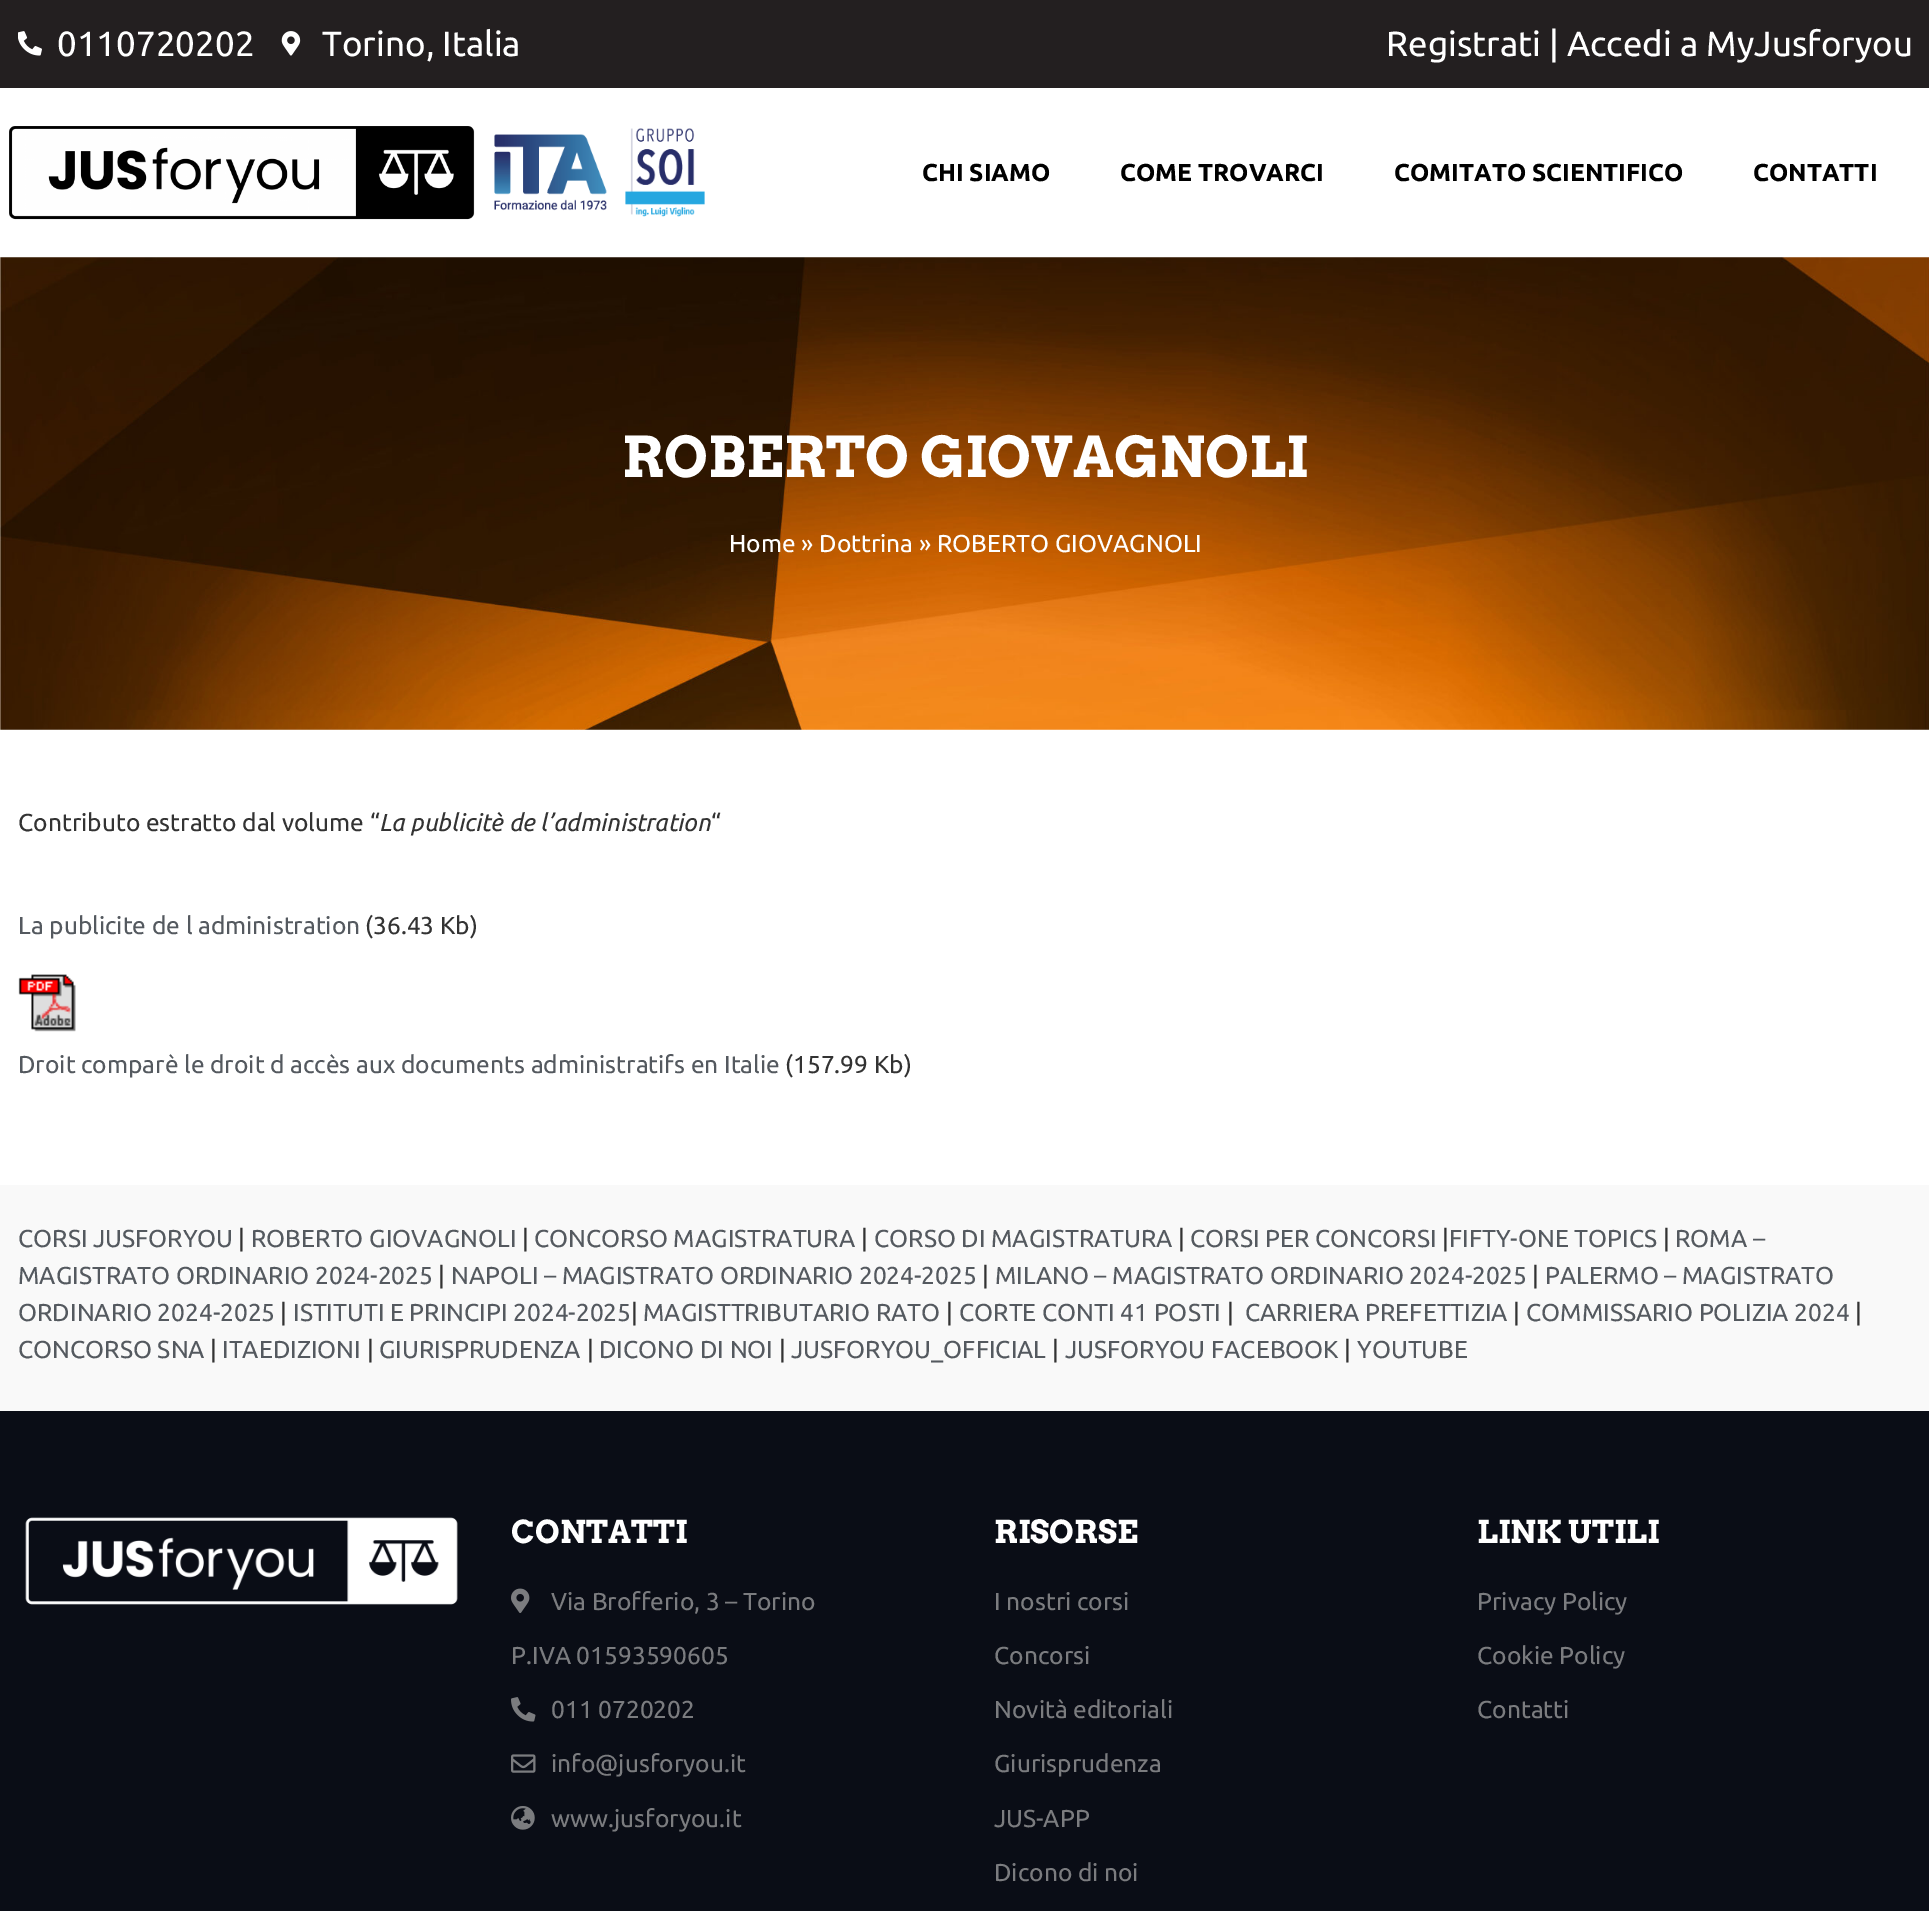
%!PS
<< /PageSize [1929 1911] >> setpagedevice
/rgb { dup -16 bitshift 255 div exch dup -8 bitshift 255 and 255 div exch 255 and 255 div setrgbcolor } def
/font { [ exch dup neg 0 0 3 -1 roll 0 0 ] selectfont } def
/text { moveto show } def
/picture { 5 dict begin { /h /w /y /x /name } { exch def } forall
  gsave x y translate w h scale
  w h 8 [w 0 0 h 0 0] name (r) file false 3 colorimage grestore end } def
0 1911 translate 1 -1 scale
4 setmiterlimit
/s1 { /Ubuntu-Regular 35 font 16#FFFFFF rgb } def
/s2 { /Ubuntu-Bold 24.5 font 16#000000 rgb } def
/s3 { /Arvo-Bold 56 font 16#FFFFFF rgb } def
/s4 { /Ubuntu-Regular 24.5 font 16#FFFFFF rgb } def
/s5 { /Ubuntu-Regular 24.5 font 16#333333 rgb } def
/s6 { /Ubuntu-Italic 24.5 font 16#333333 rgb } def
/s7 { /Ubuntu-Regular 24.5 font 16#54595F rgb } def
/s8 { /Arvo-Bold 31.5 font 16#FFFFFF rgb } def
/s9 { /Ubuntu-Regular 24.5 font 16#7B7C7F rgb } def
16#FFFFFF rgb
0 0 1929 1911 rectfill
16#231F20 rgb
0 0 1929 88 rectfill
(pic1.raw) 18 31 24 25 picture
s1
(0110720202) 57 56 text
(pic2.raw) 281 31 20 25 picture
(Torino, Italia) 322 56 text
(Registrati | Accedi a MyJusforyou) 1386 56 text
(pic3.raw) 9 126 466 94 picture
(pic4.raw) 494 134 113 77 picture
(pic5.raw) 625 128 80 89 picture
s2
(CHI SIAMO) 922 181 text
(COME TROVARCI) 1120 181 text
(COMITATO SCIENTIFICO) 1394 181 text
(CONTATTI) 1753 181 text
(pic6.raw) 0 257 1929 473 picture
s3
(ROBERTO GIOVAGNOLI) 622 477 text
s4
(Home » Dottrina » ROBERTO GIOVAGNOLI) 729 552 text
s5
(Contributo estratto dal volume “) 18 831 text
s6
(La publicitè de l’administration) 379 831 text
s5
(“) 711 831 text
s7
(La publicite de l administration) 18 934 text
s5
(\(36.43 Kb\)) 365 934 text
(pic7.raw) 18 974 58 58 picture
s7
(Droit comparè le droit d accès aux documents administratifs en Italie) 18 1073 text
s5
(\(157.99 Kb\)) 785 1073 text
16#F9F9F9 rgb
0 1185 1929 226 rectfill
s7
(CORSI JUSFORYOU) 18 1247 text
s5
(|) 238 1247 text
s7
(ROBERTO GIOVAGNOLI) 251 1247 text
s5
(|) 522 1247 text
s7
(CONCORSO MAGISTRATURA) 534 1247 text
s5
(|) 861 1247 text
s7
(CORSO DI MAGISTRATURA) 874 1247 text
s5
(|) 1178 1247 text
s7
(CORSI PER CONCORSI) 1190 1247 text
s5
(|) 1442 1247 text
s7
(FIFTY-ONE TOPICS) 1449 1247 text
s5
(|) 1663 1247 text
s7
(ROMA –) 1675 1247 text
(MAGISTRATO ORDINARIO 2024-2025) 18 1284 text
s5
(|) 438 1284 text
s7
(NAPOLI – MAGISTRATO ORDINARIO 2024-2025) 451 1284 text
s5
(|) 982 1284 text
s7
(MILANO – MAGISTRATO ORDINARIO 2024-2025) 995 1284 text
s5
(|) 1532 1284 text
s7
(PALERMO – MAGISTRATO) 1545 1284 text
(ORDINARIO 2024-2025) 18 1321 text
s5
(|) 280 1321 text
s7
(ISTITUTI E PRINCIPI 2024-2025) 293 1321 text
s5
(|) 631 1321 text
s7
(MAGISTTRIBUTARIO RATO) 643 1321 text
s5
(|) 946 1321 text
s7
(CORTE CONTI 41 POSTI) 959 1321 text
s5
(|) 1227 1321 text
s7
(CARRIERA PREFETTIZIA) 1245 1321 text
s5
(|) 1513 1321 text
s7
(COMMISSARIO POLIZIA 2024) 1526 1321 text
s5
(|) 1855 1321 text
s7
(CONCORSO SNA) 18 1358 text
s5
(|) 210 1358 text
s7
(ITAEDIZIONI) 222 1358 text
s5
(|) 367 1358 text
s7
(GIURISPRUDENZA) 379 1358 text
s5
(|) 587 1358 text
s7
(DICONO DI NOI) 599 1358 text
s5
(|) 779 1358 text
s7
(JUSFORYOU_OFFICIAL) 791 1358 text
s5
(|) 1052 1358 text
s7
(JUSFORYOU FACEBOOK) 1065 1358 text
s5
(|) 1344 1358 text
s7
(YOUTUBE) 1357 1358 text
16#0A0D16 rgb
0 1411 1929 500 rectfill
(pic8.raw) 25 1517 433 88 picture
s8
(CONTATTI) 511 1543 text
(pic9.raw) 511 1588 19 25 picture
s9
(Via Brofferio, 3 – Torino) 551 1610 text
(P.IVA 01593590605) 511 1664 text
(pic10.raw) 511 1697 25 25 picture
(011 0720202) 551 1718 text
(pic11.raw) 511 1754 25 19 picture
(info@jusforyou.it) 551 1772 text
(pic12.raw) 511 1806 24 24 picture
(www.jusforyou.it) 551 1827 text
s8
(RISORSE) 994 1543 text
s9
(I nostri corsi) 994 1610 text
(Concorsi) 994 1664 text
(Novità editoriali) 994 1718 text
(Giurisprudenza) 994 1772 text
(JUS-APP) 994 1827 text
(Dicono di noi) 994 1881 text
s8
(LINK UTILI) 1477 1543 text
s9
(Privacy Policy) 1477 1610 text
(Cookie Policy) 1477 1664 text
(Contatti) 1477 1718 text
showpage
